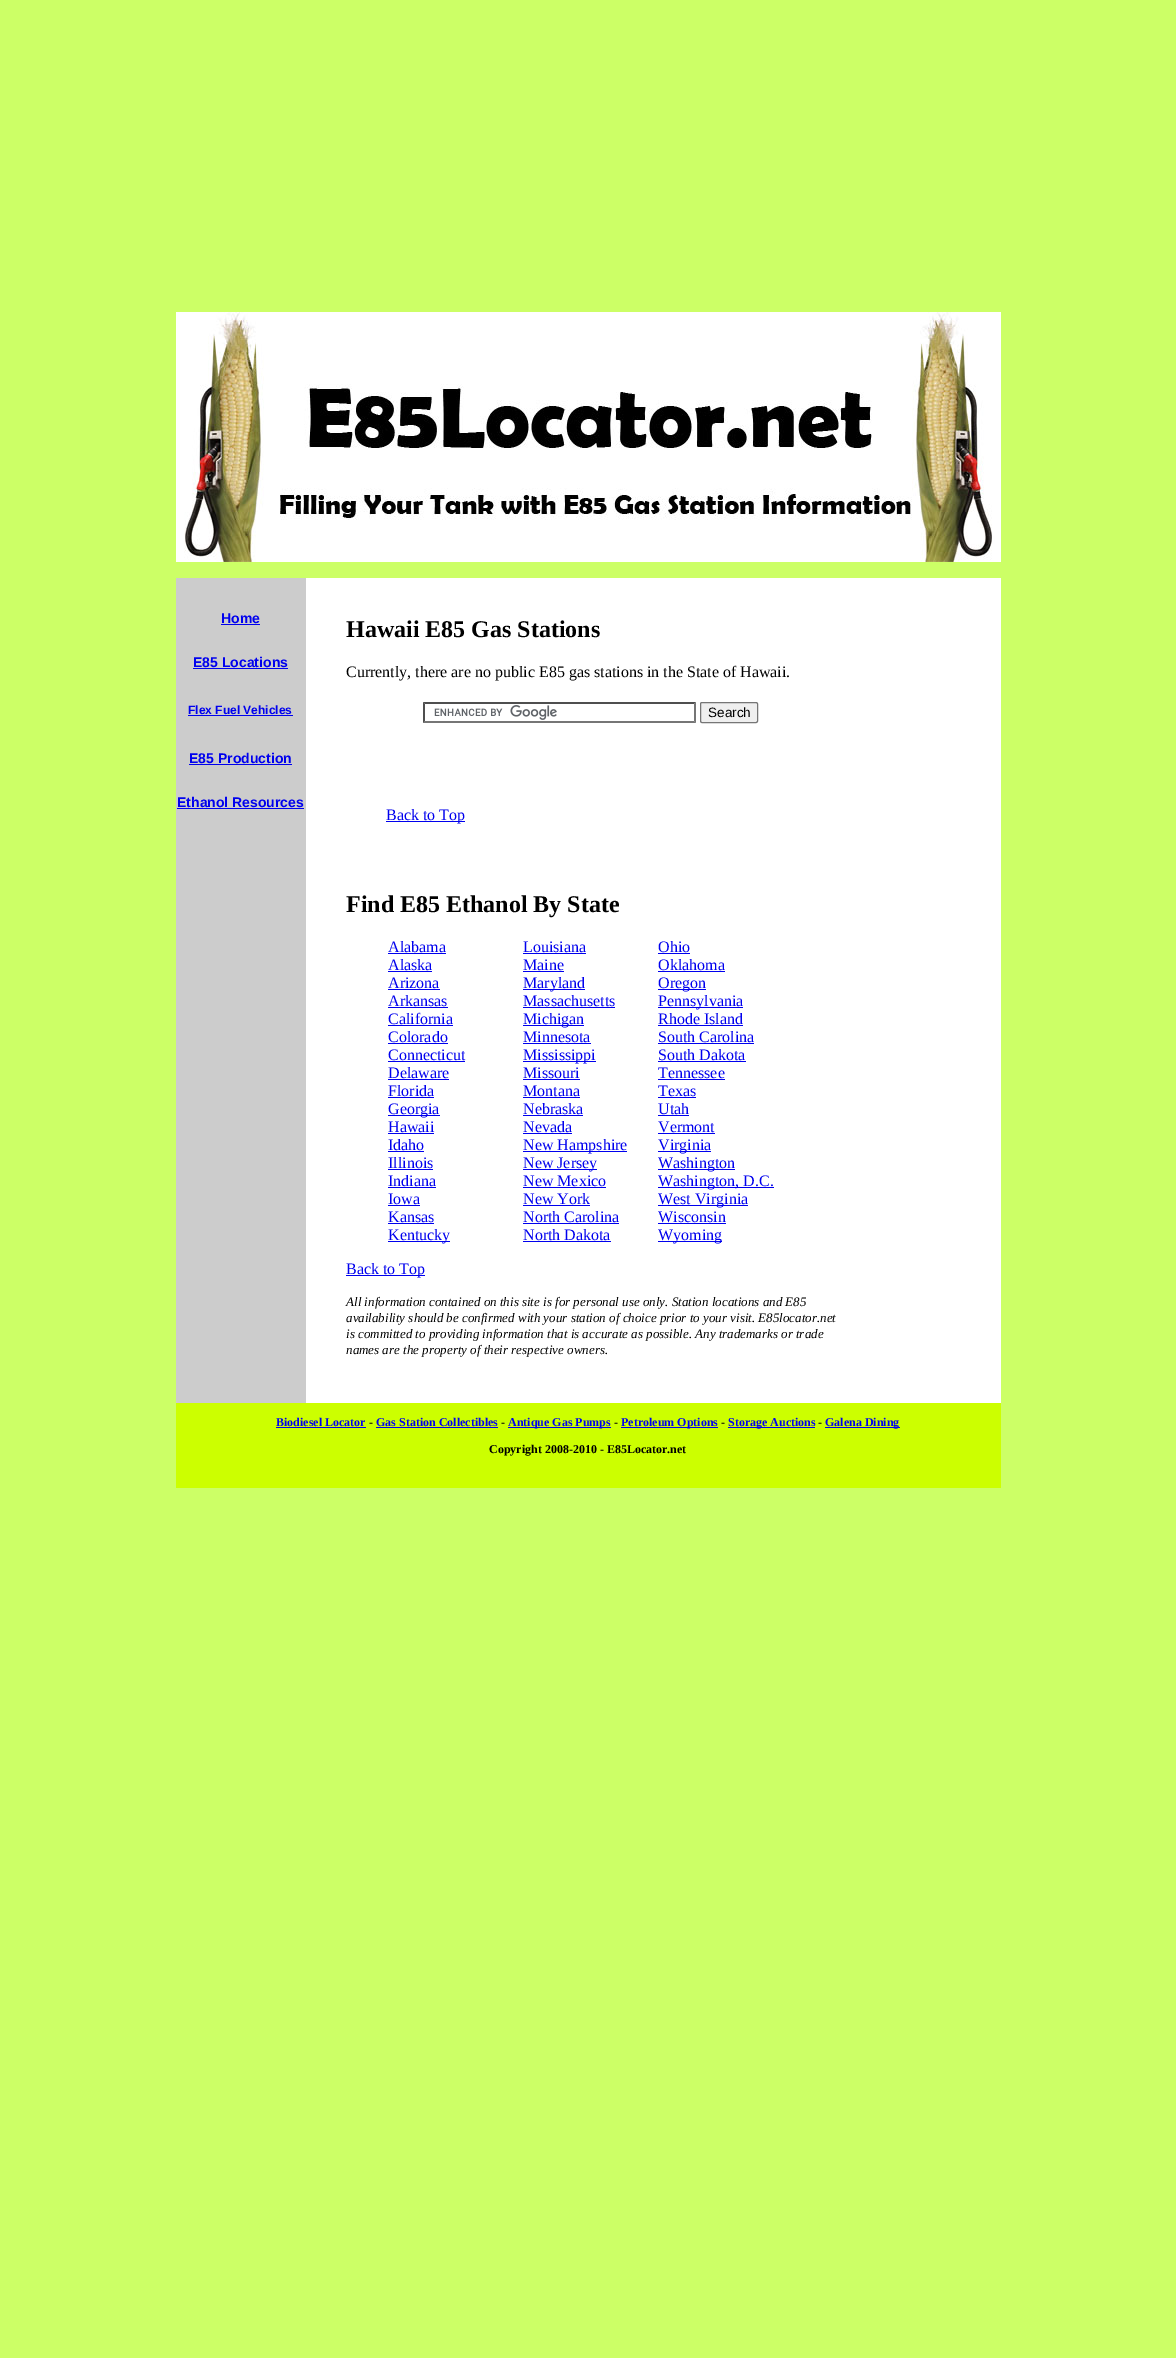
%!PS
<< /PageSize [1176 2358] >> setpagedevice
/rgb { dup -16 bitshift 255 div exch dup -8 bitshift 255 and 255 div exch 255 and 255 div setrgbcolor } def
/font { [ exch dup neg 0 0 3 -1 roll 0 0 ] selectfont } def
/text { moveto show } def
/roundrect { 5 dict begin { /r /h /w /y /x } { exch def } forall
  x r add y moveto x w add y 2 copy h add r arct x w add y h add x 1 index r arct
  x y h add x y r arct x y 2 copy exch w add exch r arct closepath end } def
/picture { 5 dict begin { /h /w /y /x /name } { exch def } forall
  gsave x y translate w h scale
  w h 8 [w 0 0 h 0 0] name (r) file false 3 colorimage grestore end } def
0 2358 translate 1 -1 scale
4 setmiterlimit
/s1 { /LiberationSans-Bold 14 font 16#0000EE rgb } def
/s2 { /LiberationSans-Bold 12 font 16#0000EE rgb } def
/s3 { /LiberationSerif-Bold 24 font 16#000000 rgb } def
/s4 { /LiberationSerif-Regular 16 font 16#000000 rgb } def
/s5 { /LiberationSans-Regular 13.5 font 16#000000 rgb } def
/s6 { /LiberationSerif-Regular 16 font 16#0000EE rgb } def
/s7 { /LiberationSerif-Italic 13 font 16#000000 rgb } def
/s8 { /LiberationSerif-Bold 12 font 16#0000EE rgb } def
/s9 { /LiberationSerif-Bold 12 font 16#000000 rgb } def
16#CCFF66 rgb
0 0 1176 2358 rectfill
(pic1.raw) 176 312 825 250 picture
16#CCCCCC rgb
176 578 130 825 rectfill
16#FFFFFF rgb
306 578 695 18 rectfill
s1
(Home) 221 623 text
221 624 39 1 rectfill
(E85 Locations) 193 667 text
193 668 95 1 rectfill
s2
(Flex Fuel Vehicles) 188 714 text
188 715 105 1 rectfill
s1
(E85 Production) 189 763 text
189 764 103 1 rectfill
(Ethanol Resources) 177 807 text
177 808 127 1 rectfill
16#FFFFFF rgb
306 596 570 101 rectfill
s3
(Hawaii E85 Gas Stations) 346 637 text
s4
(Currently, there are no public E85 gas stations in the State of Hawaii.) 346 677 text
16#FFFFFF rgb
876 596 125 807 rectfill
306 697 570 706 rectfill
(pic2.raw) 434 705 123 15 picture
16#4F4F4F rgb
423 702 moveto 696 702 lineto 694 704 lineto 425 704 lineto closepath fill
16#767676 rgb
696 702 moveto 696 723 lineto 694 721 lineto 694 704 lineto closepath fill
696 723 moveto 423 723 lineto 425 721 lineto 694 721 lineto closepath fill
16#4F4F4F rgb
423 723 moveto 423 702 lineto 425 704 lineto 425 721 lineto closepath fill
16#EFEFEF rgb
700.5 702.5 57 20 1.5 roundrect gsave fill grestore
16#767676 rgb
stroke
s5
(Search) 708 717 text
16#0000EE rgb
386 821 79 1 rectfill
s6
(Back to Top) 386 820 text
s3
(Find E85 Ethanol By State) 346 912 text
s6
(Alabama) 388 952 text
388 953 58 1 rectfill
(Louisiana) 523 952 text
523 953 63 1 rectfill
(Ohio) 658 952 text
658 953 32 1 rectfill
(Alaska) 388 970 text
388 971 44 1 rectfill
(Maine) 523 970 text
523 971 41 1 rectfill
(Oklahoma) 658 970 text
658 971 67 1 rectfill
(Arizona) 388 988 text
388 989 52 1 rectfill
523 989 62 1 rectfill
(Maryland) 523 988 text
658 989 48 1 rectfill
(Oregon) 658 988 text
(Arkansas) 388 1006 text
388 1007 60 1 rectfill
(Massachusetts) 523 1006 text
523 1007 92 1 rectfill
658 1007 85 1 rectfill
(Pennsylvania) 658 1006 text
(California) 388 1024 text
388 1025 65 1 rectfill
523 1025 61 1 rectfill
(Michigan) 523 1024 text
(Rhode Island) 658 1024 text
658 1025 85 1 rectfill
(Colorado) 388 1042 text
388 1043 60 1 rectfill
(Minnesota) 523 1042 text
523 1043 68 1 rectfill
(South Carolina) 658 1042 text
658 1043 96 1 rectfill
(Connecticut) 388 1060 text
388 1061 77 1 rectfill
523 1061 73 1 rectfill
(Mississippi) 523 1060 text
(South Dakota) 658 1060 text
658 1061 88 1 rectfill
(Delaware) 388 1078 text
388 1079 61 1 rectfill
(Missouri) 523 1078 text
523 1079 57 1 rectfill
(Tennessee) 658 1078 text
658 1079 67 1 rectfill
(Florida) 388 1096 text
388 1097 46 1 rectfill
(Montana) 523 1096 text
523 1097 57 1 rectfill
(Texas) 658 1096 text
658 1097 38 1 rectfill
388 1115 52 1 rectfill
(Georgia) 388 1114 text
(Nebraska) 523 1114 text
523 1115 60 1 rectfill
(Utah) 658 1114 text
658 1115 31 1 rectfill
(Hawaii) 388 1132 text
388 1133 46 1 rectfill
(Nevada) 523 1132 text
523 1133 49 1 rectfill
(Vermont) 658 1132 text
658 1133 57 1 rectfill
(Idaho) 388 1150 text
388 1151 36 1 rectfill
523 1151 104 1 rectfill
(New Hampshire) 523 1150 text
658 1151 53 1 rectfill
(Virginia) 658 1150 text
(Illinois) 388 1168 text
388 1169 45 1 rectfill
523 1169 74 1 rectfill
(New Jersey) 523 1168 text
658 1169 77 1 rectfill
(Washington) 658 1168 text
(Indiana) 388 1186 text
388 1187 48 1 rectfill
(New Mexico) 523 1186 text
523 1187 83 1 rectfill
658 1187 116 1 rectfill
(Washington, D.C.) 658 1186 text
(Iowa) 388 1204 text
388 1205 32 1 rectfill
(New York) 523 1204 text
523 1205 67 1 rectfill
658 1205 90 1 rectfill
(West Virginia) 658 1204 text
(Kansas) 388 1222 text
388 1223 46 1 rectfill
(North Carolina) 523 1222 text
523 1223 96 1 rectfill
(Wisconsin) 658 1222 text
658 1223 68 1 rectfill
388 1241 62 1 rectfill
(Kentucky) 388 1240 text
(North Dakota) 523 1240 text
523 1241 88 1 rectfill
658 1241 64 1 rectfill
(Wyoming) 658 1240 text
346 1275 79 1 rectfill
(Back to Top) 346 1274 text
s7
(All information contained on this site is for personal use only. Station locations and E85) 346 1306 text
(availability should be confirmed with your station of choice prior to your visit. E85locator.net) 346 1322 text
(is committed to providing information that is accurate as possible. Any trademarks or trade) 346 1338 text
(names are the property of their respective owners.) 346 1354 text
16#CCFF00 rgb
176 1403 825 85 rectfill
s8
(Biodiesel Locator) 276 1426 text
276 1427 90 1 rectfill
s9
(-) 369 1426 text
s8
(Gas Station Collectibles) 376 1426 text
376 1427 122 1 rectfill
s9
(-) 501 1426 text
16#0000EE rgb
508 1427 103 1 rectfill
(Antique Gas Pumps) 508 1426 text
s9
(-) 614 1426 text
16#0000EE rgb
621 1427 97 1 rectfill
(Petroleum Options) 621 1426 text
s9
(-) 721 1426 text
16#0000EE rgb
728 1427 87 1 rectfill
(Storage Auctions) 728 1426 text
s9
(-) 818 1426 text
16#0000EE rgb
825 1427 75 1 rectfill
(Galena Dining) 825 1426 text
s9
(Copyright 2008-2010 - E85Locator.net) 489 1453 text
showpage
